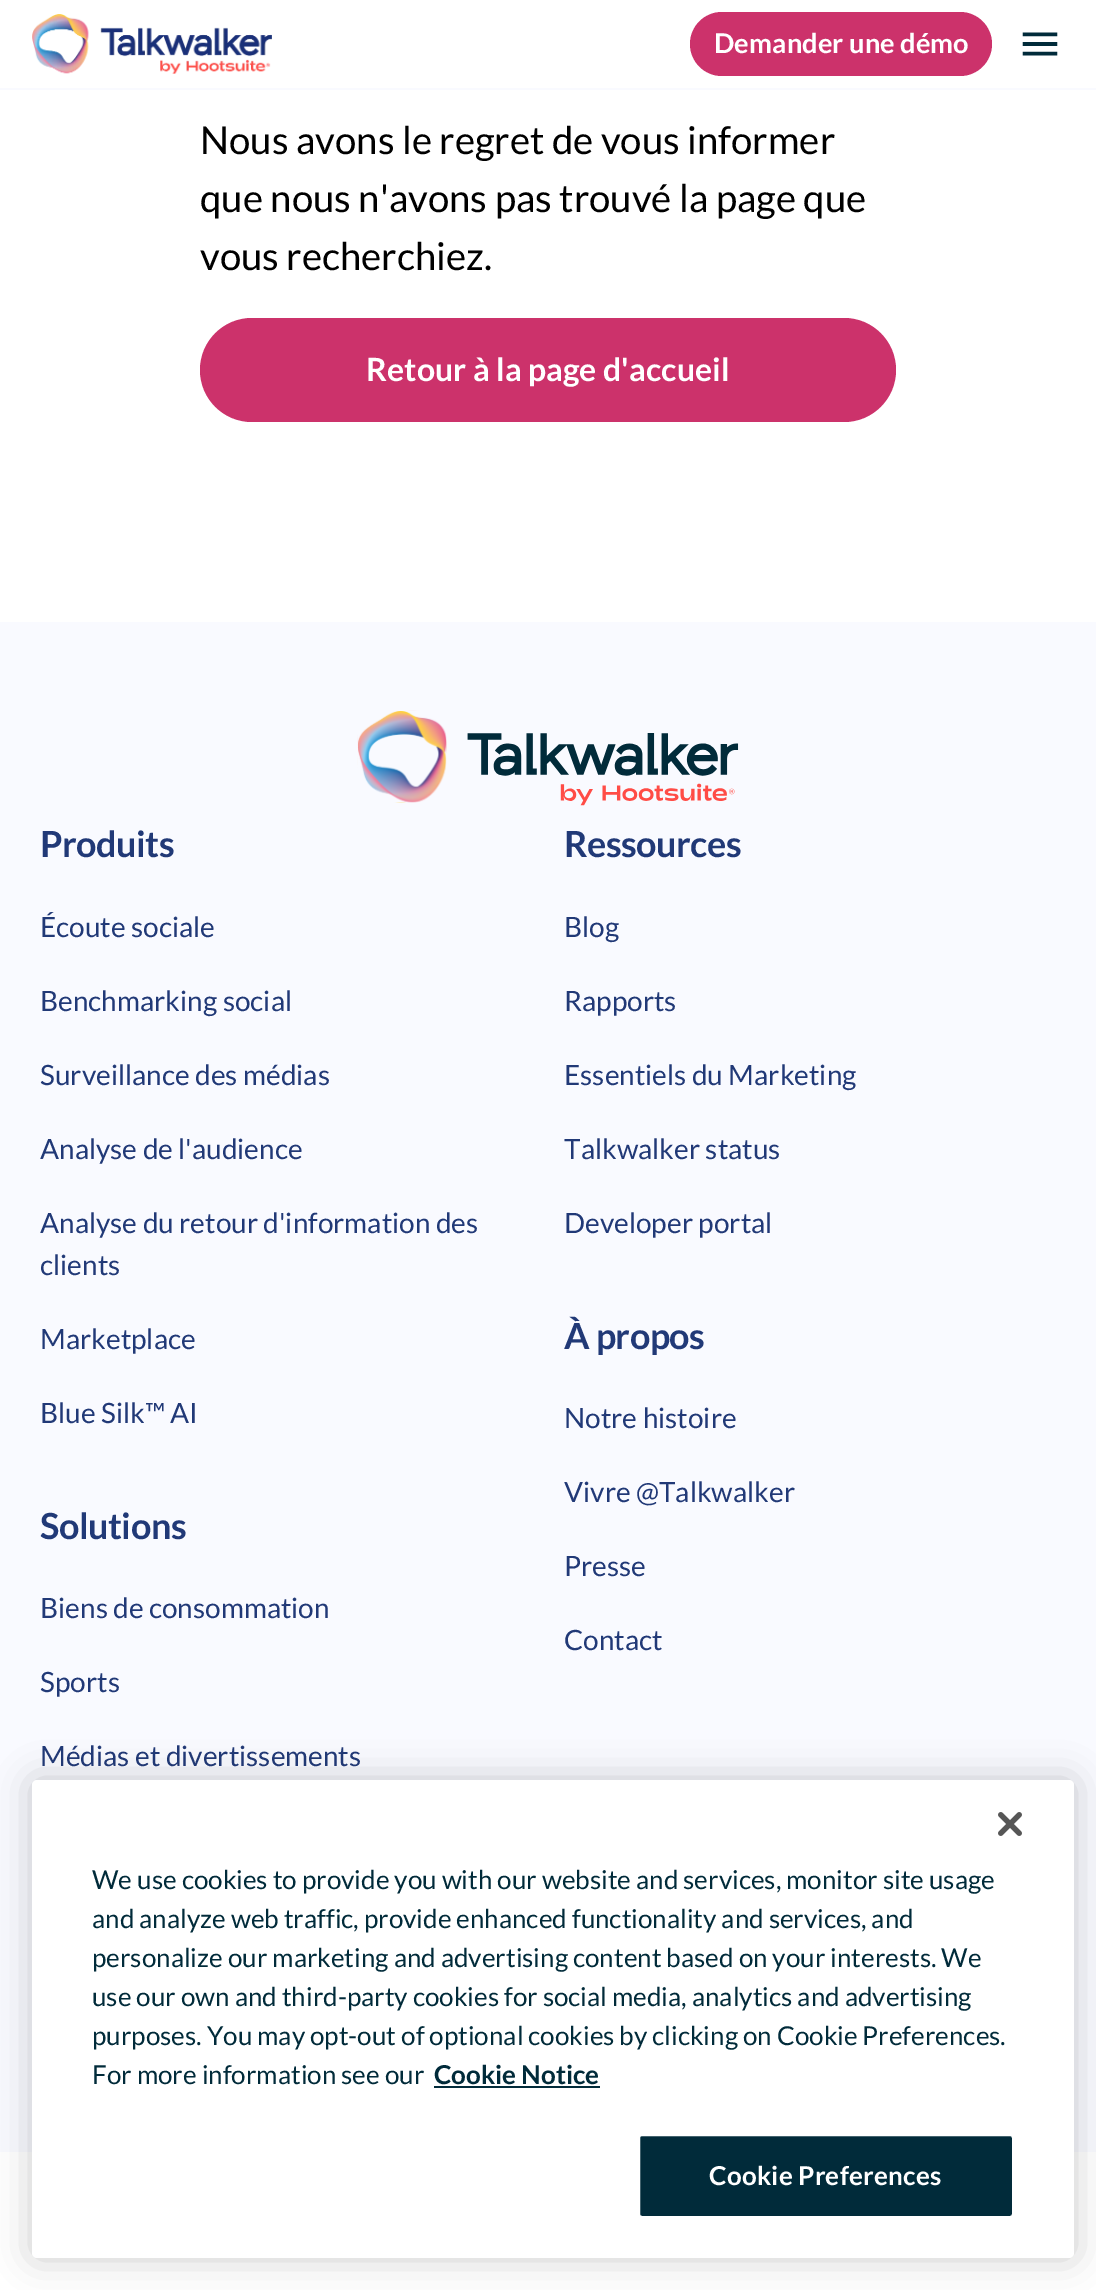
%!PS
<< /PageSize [1096 2290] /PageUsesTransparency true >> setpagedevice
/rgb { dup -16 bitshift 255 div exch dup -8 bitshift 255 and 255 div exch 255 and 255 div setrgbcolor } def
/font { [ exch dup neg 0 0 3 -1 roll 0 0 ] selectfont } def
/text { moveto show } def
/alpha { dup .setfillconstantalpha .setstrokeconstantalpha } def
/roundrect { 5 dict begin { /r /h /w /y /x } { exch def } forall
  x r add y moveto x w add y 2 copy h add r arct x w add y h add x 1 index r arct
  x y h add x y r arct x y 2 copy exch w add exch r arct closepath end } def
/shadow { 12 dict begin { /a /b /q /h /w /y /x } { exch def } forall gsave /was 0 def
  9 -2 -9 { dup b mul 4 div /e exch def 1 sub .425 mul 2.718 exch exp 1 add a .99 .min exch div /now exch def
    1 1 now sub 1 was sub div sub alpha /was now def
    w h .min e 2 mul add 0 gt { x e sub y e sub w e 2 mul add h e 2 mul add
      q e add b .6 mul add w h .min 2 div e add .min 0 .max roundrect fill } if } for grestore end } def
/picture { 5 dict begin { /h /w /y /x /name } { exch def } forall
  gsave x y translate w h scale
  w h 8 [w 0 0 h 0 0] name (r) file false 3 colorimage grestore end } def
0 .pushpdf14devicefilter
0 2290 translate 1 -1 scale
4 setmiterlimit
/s1 { /Lato-Regular 38.4 font 16#000000 rgb } def
/s2 { /Lato-Regular 28 font 16#213977 rgb } def
/s3 { /Lato-Regular 26 font 16#012B3A rgb } def
/s4 { /Lato-Bold 26 font 16#012B3A rgb } def
16#FFFFFF rgb
0 0 1096 2290 rectfill
16#F9FAFF rgb
0 88 1096 2 rectfill
(pic1.raw) 32 14 240 60 picture
16#CC326B rgb
690 12 302 64 32 roundrect fill
/Lato-Bold 27.25 font
16#FFFFFF rgb
714 53 moveto 0.1 0 (Demander une démo) ashow
(pic2.raw) 1022 32 36 24 picture
s1
(Nous avons le regret de vous informer) 200 154 text
(que nous n'avons pas trouvé la page que) 200 212 text
(vous recherchiez.) 200 270 text
16#CC326B rgb
200 318 696 104 52 roundrect fill
/Lato-Bold 32 font
16#FFFFFF rgb
366 381 moveto 0.1 0 (Retour à la page d'accueil) ashow
16#F9FAFF rgb
0 622 1096 1530 rectfill
(pic3.raw) 357 710 382 96 picture
/Lato-Bold 36 font
16#213977 rgb
40 857 moveto -0.5 0 (Produits) ashow
s2
(Écoute sociale) 40 937 text
(Benchmarking social) 40 1011 text
(Surveillance des médias) 40 1085 text
(Analyse de l'audience) 40 1159 text
(Analyse du retour d'information des) 40 1233 text
(clients) 40 1275 text
(Marketplace) 40 1349 text
(Blue Silk™ AI) 40 1423 text
/Lato-Bold 36 font
564 857 moveto -0.5 0 (Ressources) ashow
s2
(Blog) 564 937 text
(Rapports) 564 1011 text
(Essentiels du Marketing) 564 1085 text
(Talkwalker status) 564 1159 text
(Developer portal) 564 1233 text
/Lato-Bold 36 font
40 1539 moveto -0.5 0 (Solutions) ashow
s2
(Biens de consommation) 40 1618 text
(Sports) 40 1692 text
(Médias et divertissements) 40 1766 text
/Lato-Bold 36 font
564 1349 moveto -0.5 0 (À propos) ashow
s2
(Notre histoire) 564 1428 text
(Vivre @Talkwalker) 564 1502 text
(Presse) 564 1576 text
(Contact) 564 1650 text
16#000000 rgb
32 1780 1042 478 5 18 0.2 shadow
16#FFFFFF rgb
32 1780 1042 478 5 roundrect fill
(pic4.raw) 998 1812 24 24 picture
s3
(We use cookies to provide you with our website and services, monitor site usage) 92 1889 text
(and analyze web traffic, provide enhanced functionality and services, and) 92 1928 text
(personalize our marketing and advertising content based on your interests. We) 92 1967 text
(use our own and third-party cookies for social media, analytics and advertising) 92 2006 text
(purposes. You may opt-out of optional cookies by clicking on Cookie Preferences.) 92 2045 text
(For more information see our) 92 2084 text
s4
(Cookie Notice) 434 2084 text
434 2086 166 2 rectfill
639 2135 374 82 3 roundrect gsave fill grestore
16#FFFFFF rgb
2 setlinewidth
stroke
709 2185 moveto 0.25 0 (Cookie Preferences) ashow
.poppdf14devicefilter showpage
